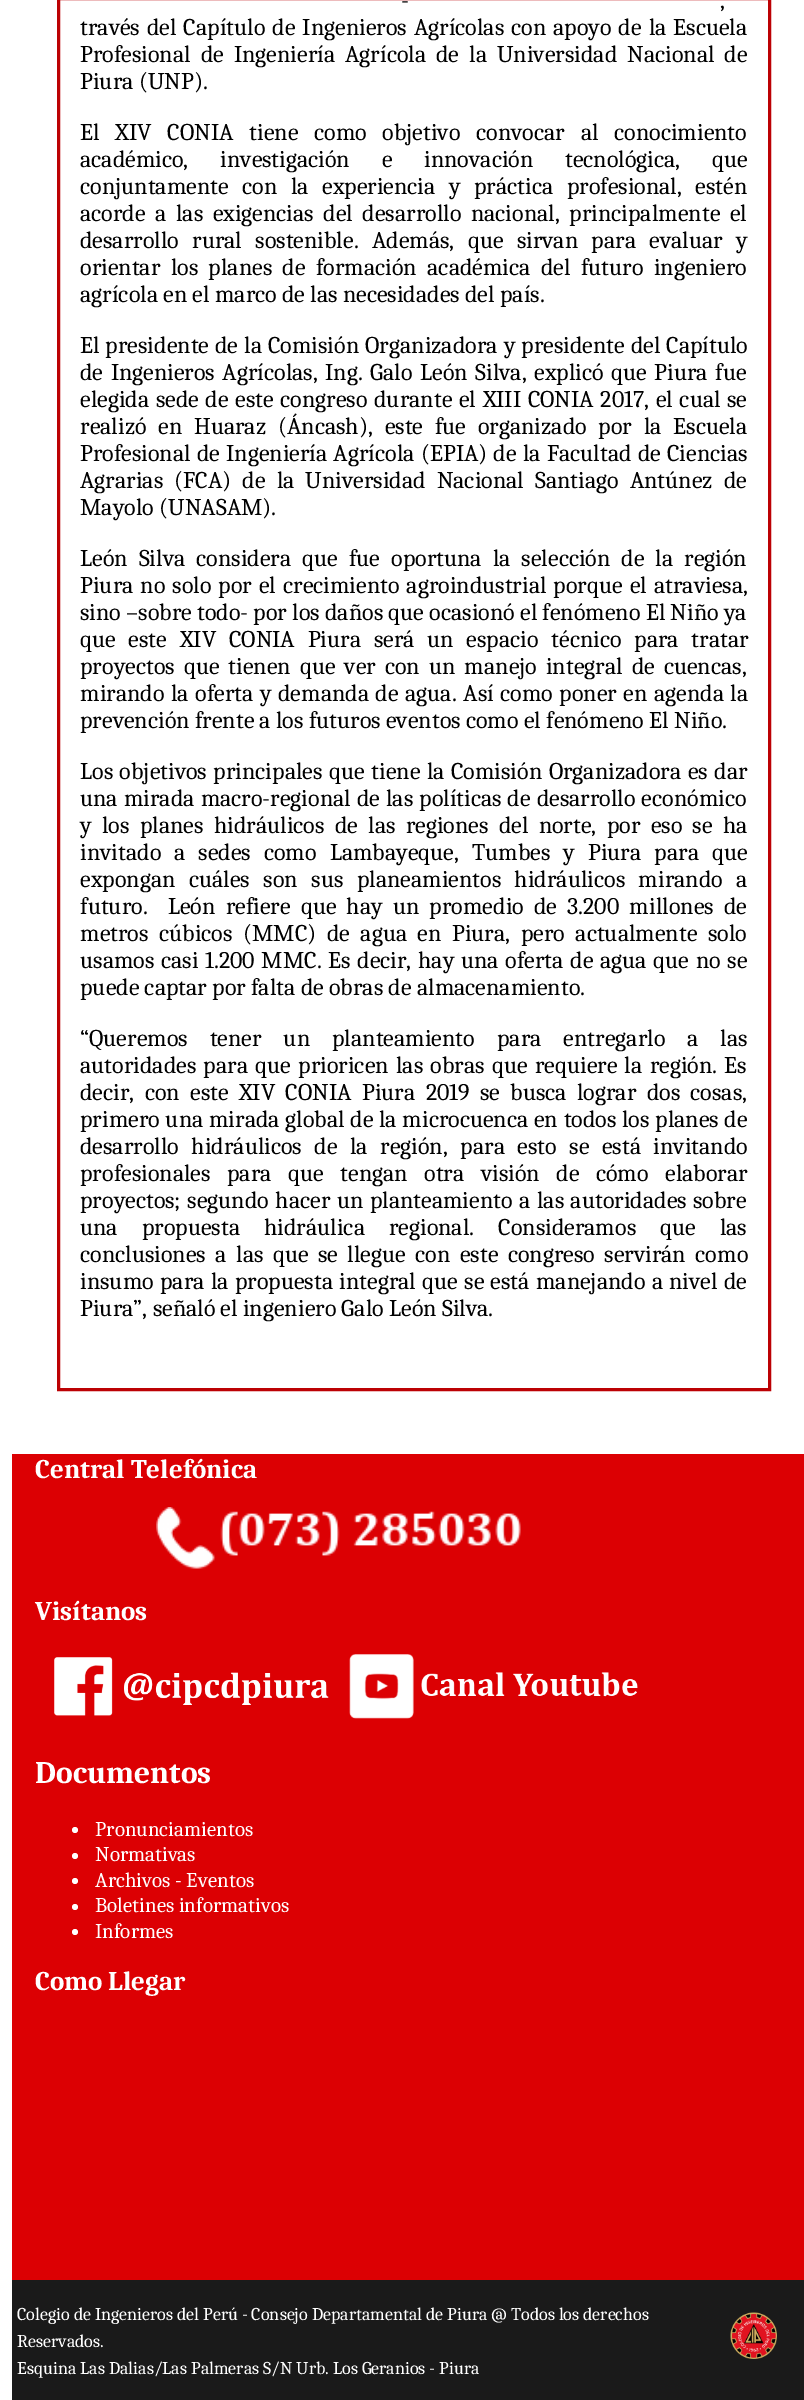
%!PS
<< /PageSize [804 2400] >> setpagedevice
/rgb { dup -16 bitshift 255 div exch dup -8 bitshift 255 and 255 div exch 255 and 255 div setrgbcolor } def
/font { [ exch dup neg 0 0 3 -1 roll 0 0 ] selectfont } def
/text { moveto show } def
/circle { newpath 0 360 arc closepath } def
/picture { 5 dict begin { /h /w /y /x /name } { exch def } forall
  gsave x y translate w h scale
  w h 8 [w 0 0 h 0 0] name (r) file false 3 colorimage grestore end } def
0 2400 translate 1 -1 scale
4 setmiterlimit
/s1 { /Caladea-Regular 24 font 16#000000 rgb } def
/s2 { /Caladea-Bold 27 font 16#FFFFFF rgb } def
/s3 { /Caladea-Bold 31.5 font 16#FFFFFF rgb } def
/s4 { /Caladea-Regular 21 font 16#FFFFFF rgb } def
/s5 { /Caladea-Regular 18 font 16#FFFFFF rgb } def
16#FFFFFF rgb
0 0 804 2400 rectfill
16#BC0104 rgb
3 setlinewidth
58.5 -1.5 711 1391 rectstroke
/Caladea-Regular 24 font
16#000000 rgb
401 8 moveto 7 0 32 (-) widthshow
720 8 moveto 7 0 32 (,) widthshow
80 35 moveto 1.75 0 32 (través del Capítulo de Ingenieros Agrícolas con apoyo de la Escuela) widthshow
80 62 moveto 4.75 0 32 (Profesional de Ingeniería Agrícola de la Universidad Nacional de) widthshow
(Piura \(UNP\).) 80 89 text
80 140 moveto 10.5 0 32 (El XIV CONIA tiene como objetivo convocar al conocimiento) widthshow
80 167 moveto 26.5 0 32 (académico, investigación e innovación tecnológica, que) widthshow
80 194 moveto 8.25 0 32 (conjuntamente con la experiencia y práctica profesional, estén) widthshow
80 221 moveto 4.25 0 32 (acorde a las exigencias del desarrollo nacional, principalmente el) widthshow
80 248 moveto 8 0 32 (desarrollo rural sostenible. Además, que sirvan para evaluar y) widthshow
80 275 moveto 5.1 0 32 (orientar los planes de formación académica del futuro ingeniero) widthshow
(agrícola en el marco de las necesidades del país.) 80 302 text
80 353 moveto 0.75 0 32 (El presidente de la Comisión Organizadora y presidente del Capítulo) widthshow
80 380 moveto 2.25 0 32 (de Ingenieros Agrícolas, Ing. Galo León Silva, explicó que Piura fue) widthshow
80 407 moveto 1.4 0 32 (elegida sede de este congreso durante el XIII CONIA 2017, el cual se) widthshow
80 434 moveto 6.5 0 32 (realizó en Huaraz \(Áncash\), este fue organizado por la Escuela) widthshow
80 461 moveto 0.9 0 32 (Profesional de Ingeniería Agrícola \(EPIA\) de la Facultad de Ciencias) widthshow
80 488 moveto 5.75 0 32 (Agrarias \(FCA\) de la Universidad Nacional Santiago Antúnez de) widthshow
(Mayolo \(UNASAM\).) 80 515 text
80 566 moveto 5.75 0 32 (León Silva considera que fue oportuna la selección de la región) widthshow
80 593 moveto 1.75 0 32 (Piura no solo por el crecimiento agroindustrial porque el atraviesa,) widthshow
(sino –sobre todo- por los daños que ocasionó el fenómeno El Niño ya) 80 620 text
80 647 moveto 7.5 0 32 (que este XIV CONIA Piura será un espacio técnico para tratar) widthshow
80 674 moveto 3.75 0 32 (proyectos que tienen que ver con un manejo integral de cuencas,) widthshow
80 701 moveto 1.25 0 32 (mirando la oferta y demanda de agua. Así como poner en agenda la) widthshow
(prevención frente a los futuros eventos como el fenómeno El Niño.) 80 728 text
80 779 moveto 1.25 0 32 (Los objetivos principales que tiene la Comisión Organizadora es dar) widthshow
80 806 moveto 0.75 0 32 (una mirada macro-regional de las políticas de desarrollo económico) widthshow
80 833 moveto 5.1 0 32 (y los planes hidráulicos de las regiones del norte, por eso se ha) widthshow
80 860 moveto 7.75 0 32 (invitado a sedes como Lambayeque, Tumbes y Piura para que) widthshow
80 887 moveto 8.25 0 32 (expongan cuáles son sus planeamientos hidráulicos mirando a) widthshow
80 914 moveto 4.9 0 32 (futuro.  León refiere que hay un promedio de 3.200 millones de) widthshow
80 941 moveto 5.25 0 32 (metros cúbicos \(MMC\) de agua en Piura, pero actualmente solo) widthshow
80 968 moveto 1.4 0 32 (usamos casi 1.200 MMC. Es decir, hay una oferta de agua que no se) widthshow
(puede captar por falta de obras de almacenamiento.) 80 995 text
80 1046 moveto 16.75 0 32 (“Queremos tener un planteamiento para entregarlo a las) widthshow
80 1073 moveto 2 0 32 (autoridades para que prioricen las obras que requiere la región. Es) widthshow
80 1100 moveto 5.1 0 32 (decir, con este XIV CONIA Piura 2019 se busca lograr dos cosas,) widthshow
80 1127 moveto 0.4 0 32 (primero una mirada global de la microcuenca en todos los planes de) widthshow
80 1154 moveto 7.25 0 32 (desarrollo hidráulicos de la región, para esto se está invitando) widthshow
80 1181 moveto 11.25 0 32 (profesionales para que tengan otra visión de cómo elaborar) widthshow
80 1208 moveto 1.25 0 32 (proyectos; segundo hacer un planteamiento a las autoridades sobre) widthshow
80 1235 moveto 18.75 0 32 (una propuesta hidráulica regional. Consideramos que las) widthshow
80 1262 moveto 4.25 0 32 (conclusiones a las que se llegue con este congreso servirán como) widthshow
80 1289 moveto 1 0 32 (insumo para la propuesta integral que se está manejando a nivel de) widthshow
(Piura”, señaló el ingeniero Galo León Silva.) 80 1316 text
16#DC0003 rgb
12 1454 792 826 rectfill
s2
(Central Telefónica) 35 1478 text
(pic1.raw) 156 1507 365 62 picture
(Visítanos) 35 1620 text
(pic2.raw) 54 1657 275 59 picture
(pic3.raw) 349 1654 289 65 picture
s3
(Documentos) 35 1783 text
75 1830 3 circle fill
s4
(Pronunciamientos) 95 1836 text
75 1856 3 circle fill
(Normativas) 95 1861 text
75 1881 3 circle fill
(Archivos - Eventos) 95 1887 text
75 1907 3 circle fill
(Boletines informativos) 95 1912 text
75 1932 3 circle fill
(Informes) 95 1938 text
s2
(Como Llegar) 35 1990 text
16#1A1A1A rgb
12 2280 792 120 rectfill
s5
(Colegio de Ingenieros del Perú - Consejo Departamental de Piura @ Todos los derechos) 17 2320 text
(Reservados.) 17 2347 text
(Esquina Las Dalias/Las Palmeras S/N Urb. Los Geranios - Piura) 17 2374 text
(pic4.raw) 730 2312 47 47 picture
showpage
